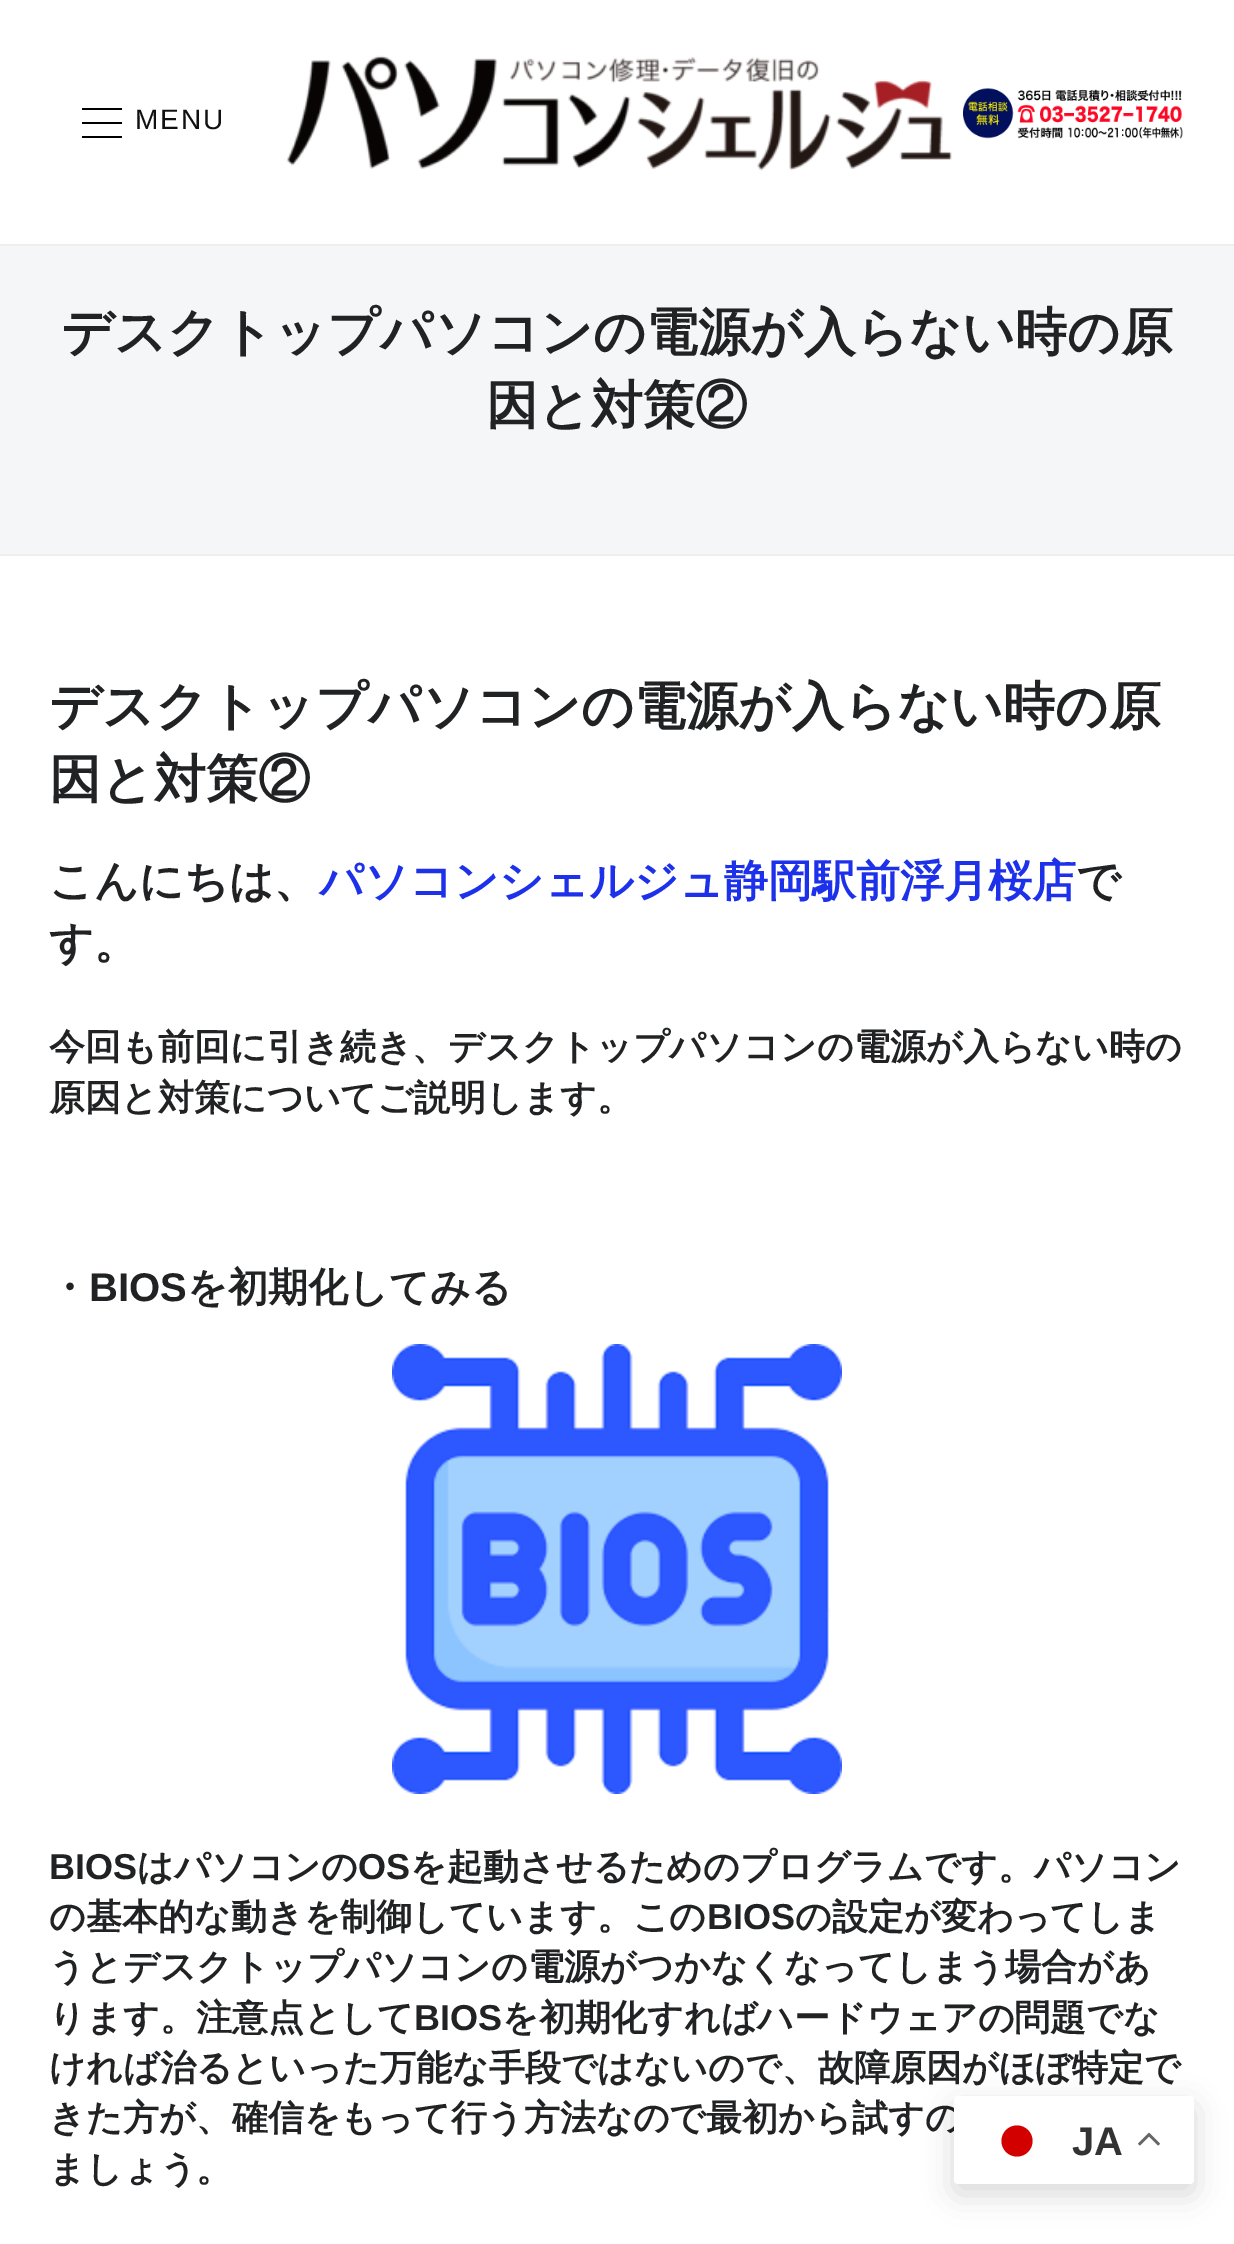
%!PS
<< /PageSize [1234 2244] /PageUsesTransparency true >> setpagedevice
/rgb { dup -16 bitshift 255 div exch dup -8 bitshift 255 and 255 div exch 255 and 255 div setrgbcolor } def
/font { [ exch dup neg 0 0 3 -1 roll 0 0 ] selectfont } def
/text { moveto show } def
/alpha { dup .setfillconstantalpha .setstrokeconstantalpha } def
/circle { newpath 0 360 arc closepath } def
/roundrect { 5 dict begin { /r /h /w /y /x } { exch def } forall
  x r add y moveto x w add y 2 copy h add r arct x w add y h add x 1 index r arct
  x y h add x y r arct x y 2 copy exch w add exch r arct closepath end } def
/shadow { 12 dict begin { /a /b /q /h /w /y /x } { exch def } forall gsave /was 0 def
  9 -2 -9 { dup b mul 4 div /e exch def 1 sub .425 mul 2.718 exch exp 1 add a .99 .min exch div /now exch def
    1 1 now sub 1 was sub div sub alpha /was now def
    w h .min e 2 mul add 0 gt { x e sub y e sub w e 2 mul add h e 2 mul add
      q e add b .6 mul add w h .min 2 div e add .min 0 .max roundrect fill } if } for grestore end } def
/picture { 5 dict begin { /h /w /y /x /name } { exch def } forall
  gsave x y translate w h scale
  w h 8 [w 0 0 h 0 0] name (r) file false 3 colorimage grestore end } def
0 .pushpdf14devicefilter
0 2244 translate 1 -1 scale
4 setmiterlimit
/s1 { /WenQuanYiZenHei-Bold 52 font 16#212223 rgb } def
/s2 { /WenQuanYiZenHei-Bold 44 font 16#212223 rgb } def
/s3 { /WenQuanYiZenHei-Bold 44 font 16#1E31EA rgb } def
/s4 { /WenQuanYiZenHei-Bold 36 font 16#212223 rgb } def
/s5 { /WenQuanYiZenHei-Bold 40 font 16#212223 rgb } def
/s6 { /LiberationSans-Bold 40 font 16#212223 rgb } def
/s7 { /LiberationSans-Bold 36 font 16#212223 rgb } def
/s8 { /LiberationSans-Bold 40 font 16#333333 rgb } def
16#FFFFFF rgb
0 0 1234 2244 rectfill
16#EEEEEE rgb
0 244 1234 2 rectfill
16#000000 rgb
82 108 40 2 rectfill
82 122 40 2 rectfill
82 136 40 2 rectfill
/LiberationSans-Regular 28 font
16#111111 rgb
135 129 moveto 2 0 (MENU) ashow
(pic1.raw) 286 55 666 116 picture
(pic2.raw) 963 88 220 51 picture
16#F5F6F7 rgb
0 246 1234 308 rectfill
16#EEEEEE rgb
0 554 1234 2 rectfill
s1
(デスクトップパソコンの電源が入らない時の原) 61 350 text
(因と対策②) 486 423 text
(デスクトップパソコンの電源が入らない時の原) 49 724 text
(因と対策②) 49 797 text
s2
(こんにちは、) 49 896 text
s3
(パソコンシェルジュ静岡駅前浮月桜店) 319 896 text
s2
(で) 1076 896 text
(す。) 49 958 text
s4
(今回も前回に引き続き、デスクトップパソコンの電源が入らない時の) 49 1059 text
(原因と対策についてご説明します。) 49 1110 text
s5
(・) 49 1301 text
s6
(BIOS) 89 1301 text
s5
(を初期化してみる) 187 1301 text
(pic3.raw) 392 1344 450 450 picture
s7
(BIOS) 49 1879 text
s4
(はパソコンの) 137 1879 text
s7
(OS) 358 1879 text
s4
(を起動させるためのプログラムです。パソコン) 410 1879 text
(の基本的な動きを制御しています。この) 49 1929 text
s7
(BIOS) 707 1929 text
s4
(の設定が変わってしま) 795 1929 text
(うとデスクトップパソコンの電源がつかなくなってしまう場合があ) 49 1979 text
(ります。注意点として) 49 2030 text
s7
(BIOS) 414 2030 text
s4
(を初期化すればハードウェアの問題でな) 502 2030 text
(ければ治るといった万能な手段ではないので、故障原因がほぼ特定で) 49 2080 text
(きた方が、確信をもって行う方法なので最初から試すの) 49 2130 text
(ましょう。) 49 2181 text
16#000000 rgb
954 2106 240 88 4 15 0.15 shadow
16#FFFFFF rgb
954 2096 240 88 4 roundrect fill
16#D30000 rgb
1017 2141 15.5 circle fill
s8
(JA) 1072 2155 text
(pic4.raw) 1138 2132 22 14 picture
.poppdf14devicefilter showpage
